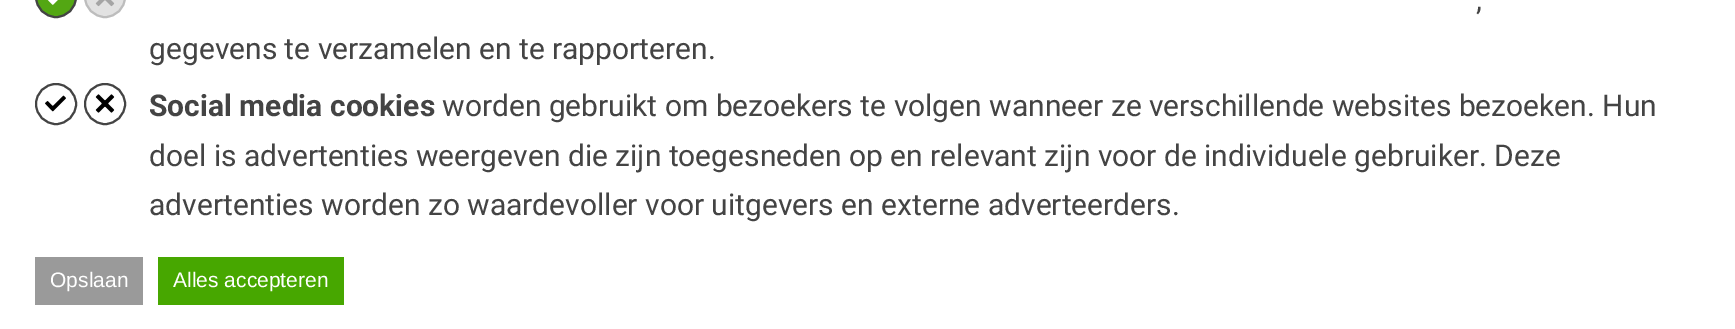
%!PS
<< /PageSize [1735 329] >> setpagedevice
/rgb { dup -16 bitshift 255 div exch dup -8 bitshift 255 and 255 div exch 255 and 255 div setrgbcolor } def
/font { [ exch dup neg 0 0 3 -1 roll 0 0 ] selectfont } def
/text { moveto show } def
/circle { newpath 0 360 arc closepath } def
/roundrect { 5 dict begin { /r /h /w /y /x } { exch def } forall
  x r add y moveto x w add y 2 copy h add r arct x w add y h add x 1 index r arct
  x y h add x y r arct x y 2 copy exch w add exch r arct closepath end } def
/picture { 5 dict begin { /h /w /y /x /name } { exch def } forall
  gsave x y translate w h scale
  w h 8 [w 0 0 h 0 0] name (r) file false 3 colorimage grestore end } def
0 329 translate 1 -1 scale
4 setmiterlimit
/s1 { /Roboto-Regular 30 font 16#444444 rgb } def
/s2 { /Roboto-Bold 30 font 16#444444 rgb } def
/s3 { /LiberationSans-Regular 21 font 16#FFFFFF rgb } def
16#FFFFFF rgb
0 0 1735 329 rectfill
16#53A713 rgb
36 -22 40 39 20 roundrect gsave fill grestore
16#444444 rgb
2 setlinewidth
stroke
(pic1.raw) 47 0 11 5 picture
16#E2E2E2 rgb
85 -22 40 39 20 roundrect gsave fill grestore
16#BDBDBD rgb
stroke
(pic2.raw) 95 0 20 7 picture
s1
(,) 1476 10 text
(gegevens te verzamelen en te rapporteren.) 149 59 text
56 104 20 circle stroke
(pic3.raw) 45 95 21 17 picture
105 104 20 circle stroke
(pic4.raw) 95 94 20 19 picture
s2
(Social media cookies) 149 116 text
s1
(worden gebruikt om bezoekers te volgen wanneer ze verschillende websites bezoeken. Hun) 442 116 text
(doel is advertenties weergeven die zijn toegesneden op en relevant zijn voor de individuele gebruiker. Deze) 149 166 text
(advertenties worden zo waardevoller voor uitgevers en externe adverteerders.) 149 215 text
16#9A9A9A rgb
35 257 108 48 rectfill
s3
(Opslaan) 50 287 text
16#47A700 rgb
158 257 186 48 rectfill
s3
(Alles accepteren) 173 287 text
showpage
